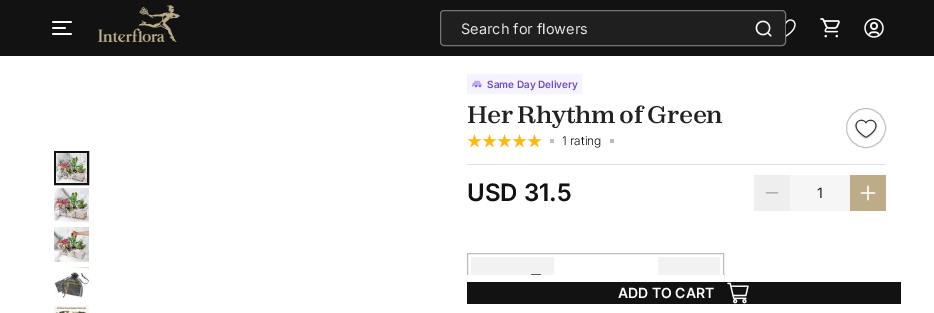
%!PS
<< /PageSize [934 313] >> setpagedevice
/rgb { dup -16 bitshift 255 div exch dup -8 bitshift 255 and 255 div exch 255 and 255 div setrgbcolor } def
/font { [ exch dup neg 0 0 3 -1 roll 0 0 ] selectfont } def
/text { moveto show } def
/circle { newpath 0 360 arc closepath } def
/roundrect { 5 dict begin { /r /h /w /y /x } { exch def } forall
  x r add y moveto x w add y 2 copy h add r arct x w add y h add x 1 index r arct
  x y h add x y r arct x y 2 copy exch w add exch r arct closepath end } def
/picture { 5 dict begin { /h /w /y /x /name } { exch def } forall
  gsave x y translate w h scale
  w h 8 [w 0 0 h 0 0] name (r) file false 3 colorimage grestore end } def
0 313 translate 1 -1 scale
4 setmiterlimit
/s1 { /Inter-Regular 14.5 font 16#E2E2E2 rgb } def
/s2 { /Inter-SemiBold 10 font 16#6D4EBF rgb } def
/s3 { /Inter-Light 12 font 16#121212 rgb } def
/s4 { /Inter-SemiBold 24 font 16#121212 rgb } def
/s5 { /Inter-Regular 14 font 16#222222 rgb } def
/s6 { /Inter-SemiBold 14 font 16#FFFFFF rgb } def
16#FFFFFF rgb
0 0 934 313 rectfill
16#121212 rgb
0 0 934 56 rectfill
(pic1.raw) 52 21 20 14 picture
(pic2.raw) 98 5 82 37 picture
16#1F1F1F rgb
440.5 10.5 345 35 3.5 roundrect gsave fill grestore
16#757575 rgb
stroke
s1
(Search for flowers) 461 34 text
(pic3.raw) 755 20 17 17 picture
(pic4.raw) 786 19 10 18 picture
(pic5.raw) 820 18 20 20 picture
(pic6.raw) 864 18 20 20 picture
16#121212 rgb
2 setlinewidth
55 152 33 32 rectstroke
(pic7.raw) 56 153 31 30 picture
(pic8.raw) 54 187 35 36 picture
(pic9.raw) 54 227 35 35 picture
(pic10.raw) 54 267 35 31 picture
(pic11.raw) 54 306 35 7 picture
16#F6F2FF rgb
467 74 115 20 rectfill
(pic12.raw) 472 80 10 8 picture
s2
(Same Day Delivery) 487 88 text
/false-Medium 24 font
16#222222 rgb
467 123 moveto -0.4 0 (Her Rhythm of Green) ashow
(pic13.raw) 467 134 15 14 picture
(pic13.raw) 482 134 15 14 picture
(pic13.raw) 497 134 15 14 picture
(pic13.raw) 512 134 15 14 picture
(pic13.raw) 527 134 15 14 picture
16#BDBDBD rgb
550 139 4 4 rectfill
s3
(1 rating) 562 145 text
16#BDBDBD rgb
610 139 4 4 rectfill
(pic14.raw) 854 119 24 21 picture
16#C4C4C4 rgb
1 setlinewidth
866 128 19.5 circle stroke
16#E0E0E0 rgb
467 164 419 1 rectfill
s4
(USD 31.5) 467 201 text
16#EEEEEE rgb
754 175 36 36 rectfill
(pic15.raw) 765 192 14 2 picture
16#F6F6F6 rgb
790 175 60 36 rectfill
s5
(1) 817 198 text
16#BEAC89 rgb
850 175 36 36 rectfill
(pic16.raw) 860 185 16 16 picture
16#BDBDBD rgb
467.5 253.5 256 47 rectstroke
16#F2F2F2 rgb
471 257 83 18 rectfill
(pic17.raw) 531 274 10 1 picture
658 257 62 18 rectfill
16#FFFFFF rgb
467 275 257 26 rectfill
16#121212 rgb
467 282 434 22 rectfill
s6
(ADD TO CART) 618 298 text
(pic18.raw) 727 282 22 22 picture
showpage
